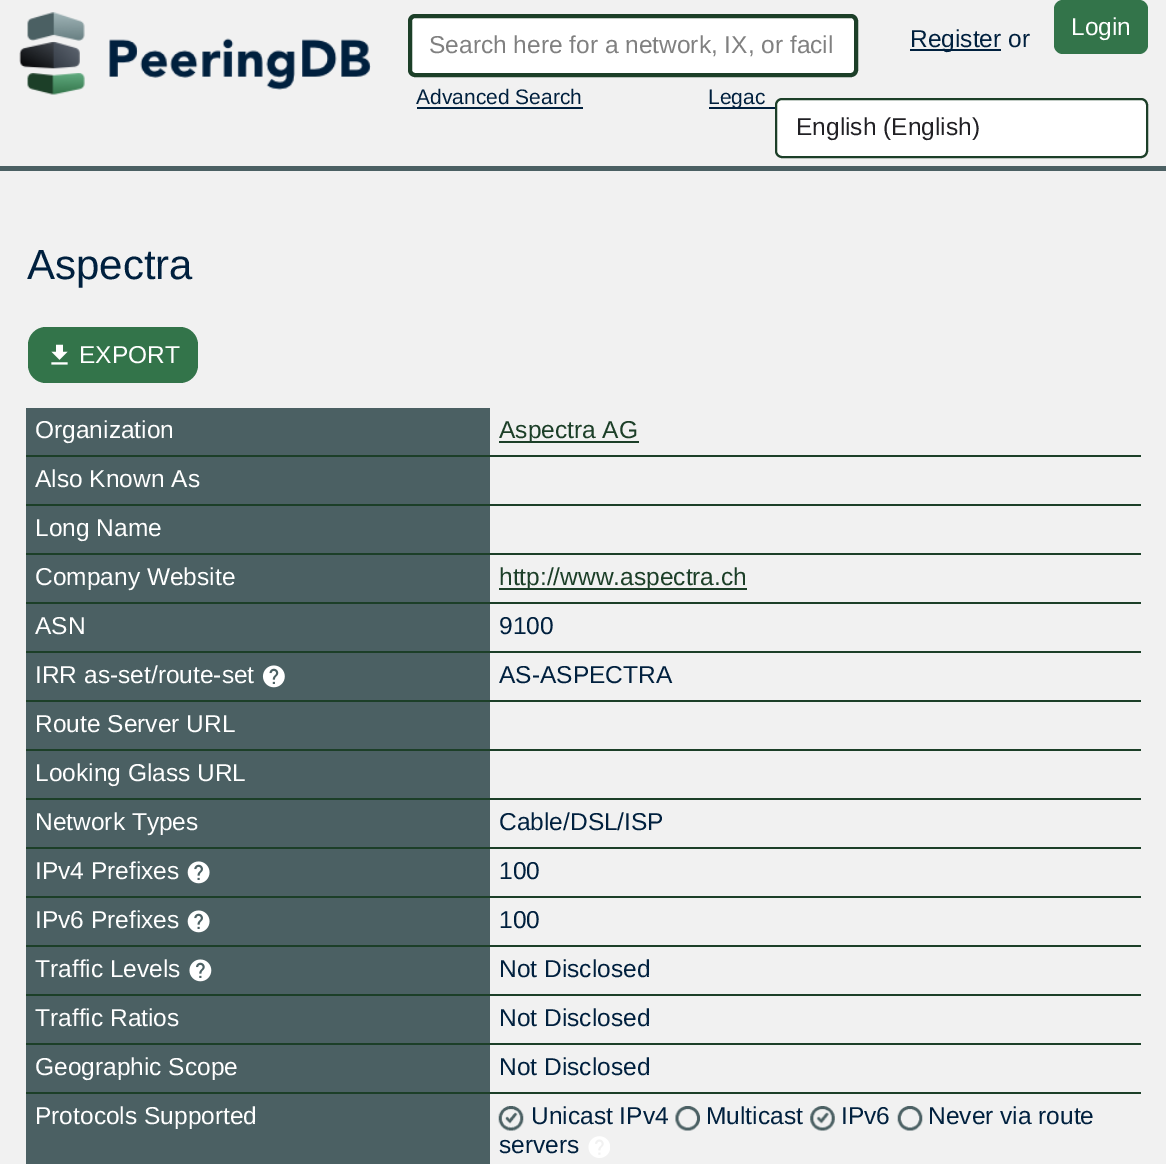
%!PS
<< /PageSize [1166 1164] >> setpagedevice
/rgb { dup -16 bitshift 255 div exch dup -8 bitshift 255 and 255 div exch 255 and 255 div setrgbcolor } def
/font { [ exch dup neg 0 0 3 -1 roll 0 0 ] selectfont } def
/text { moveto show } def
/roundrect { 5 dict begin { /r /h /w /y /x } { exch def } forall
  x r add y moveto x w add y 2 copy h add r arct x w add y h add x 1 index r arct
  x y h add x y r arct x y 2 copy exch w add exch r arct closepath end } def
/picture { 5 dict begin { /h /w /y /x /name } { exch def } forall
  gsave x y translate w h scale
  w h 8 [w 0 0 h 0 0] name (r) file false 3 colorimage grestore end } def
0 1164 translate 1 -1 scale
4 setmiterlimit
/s1 { /LiberationSans-Regular 24.5 font 16#808080 rgb } def
/s2 { /LiberationSans-Regular 21 font 16#00203E rgb } def
/s3 { /LiberationSans-Regular 24.5 font 16#00203E rgb } def
/s4 { /LiberationSans-Regular 24.5 font 16#FFFFFF rgb } def
/s5 { /LiberationSans-Regular 24.5 font 16#212024 rgb } def
/s6 { /LiberationSans-Regular 42 font 16#00203E rgb } def
/s7 { /LiberationSans-Regular 24.5 font 16#1C3F28 rgb } def
16#F1F1F1 rgb
0 0 1166 1164 rectfill
16#4B6063 rgb
0 166 1166 5 rectfill
(pic1.raw) 19 12 352 83 picture
16#FFFFFF rgb
410 16 446 59 5 roundrect gsave fill grestore
16#1C3F28 rgb
4 setlinewidth
stroke
s1
(Search here for a network, IX, or facil) 429 53 text
s2
(Advanced Search) 416 104 text
417 107 166 2 rectfill
709 107 66 2 rectfill
(Legac) 708 104 text
910 49 91 2 rectfill
s3
(Register or) 910 47 text
16#33744A rgb
1054 0 94 54 9 roundrect fill
s4
(Login) 1071 35 text
777 100 369 56 4 roundrect fill
16#1C3F28 rgb
2 setlinewidth
776 99 371 58 6 roundrect stroke
s5
(English \(English\)) 796 135 text
s6
(Aspectra) 27 279 text
16#33744A rgb
28 327 170 56 18 roundrect fill
(pic2.raw) 51 344 17 21 picture
s4
(EXPORT) 79 363 text
16#1C3F28 rgb
26 455 1115 2 rectfill
16#4B6063 rgb
26 408 464 47 rectfill
s4
(Organization) 35 438 text
16#1C3F28 rgb
499 441 140 2 rectfill
(Aspectra AG) 499 438 text
26 504 1115 2 rectfill
16#4B6063 rgb
26 457 464 47 rectfill
s4
(Also Known As) 35 487 text
16#1C3F28 rgb
26 553 1115 2 rectfill
16#4B6063 rgb
26 506 464 47 rectfill
s4
(Long Name) 35 536 text
16#1C3F28 rgb
26 602 1115 2 rectfill
16#4B6063 rgb
26 555 464 47 rectfill
s4
(Company Website) 35 585 text
16#1C3F28 rgb
499 588 248 2 rectfill
(http://www.aspectra.ch) 499 585 text
26 651 1115 2 rectfill
16#4B6063 rgb
26 604 464 47 rectfill
s4
(ASN) 35 634 text
s3
(9100) 499 634 text
16#1C3F28 rgb
26 700 1115 2 rectfill
16#4B6063 rgb
26 653 464 47 rectfill
s4
(IRR as-set/route-set) 35 683 text
(pic3.raw) 262 665 23 23 picture
s3
(AS-ASPECTRA) 499 683 text
16#1C3F28 rgb
26 749 1115 2 rectfill
16#4B6063 rgb
26 702 464 47 rectfill
s4
(Route Server URL) 35 732 text
16#1C3F28 rgb
26 798 1115 2 rectfill
16#4B6063 rgb
26 751 464 47 rectfill
s4
(Looking Glass URL) 35 781 text
16#1C3F28 rgb
26 847 1115 2 rectfill
16#4B6063 rgb
26 800 464 47 rectfill
s4
(Network Types) 35 830 text
s3
(Cable/DSL/ISP) 499 830 text
16#1C3F28 rgb
26 896 1115 2 rectfill
16#4B6063 rgb
26 849 464 47 rectfill
s4
(IPv4 Prefixes) 35 879 text
(pic4.raw) 187 861 23 23 picture
s3
(100) 499 879 text
16#1C3F28 rgb
26 945 1115 2 rectfill
16#4B6063 rgb
26 898 464 47 rectfill
s4
(IPv6 Prefixes) 35 928 text
(pic4.raw) 187 910 23 23 picture
s3
(100) 499 928 text
16#1C3F28 rgb
26 994 1115 2 rectfill
16#4B6063 rgb
26 947 464 47 rectfill
s4
(Traffic Levels) 35 977 text
(pic5.raw) 189 959 23 23 picture
s3
(Not Disclosed) 499 977 text
16#1C3F28 rgb
26 1043 1115 2 rectfill
16#4B6063 rgb
26 996 464 47 rectfill
s4
(Traffic Ratios) 35 1026 text
s3
(Not Disclosed) 499 1026 text
16#1C3F28 rgb
26 1092 1115 2 rectfill
16#4B6063 rgb
26 1045 464 47 rectfill
s4
(Geographic Scope) 35 1075 text
s3
(Not Disclosed) 499 1075 text
16#4B6063 rgb
26 1094 464 70 rectfill
s4
(Protocols Supported) 35 1124 text
(pic6.raw) 498 1106 26 25 picture
s3
(Unicast IPv4) 531 1124 text
(pic7.raw) 675 1106 25 25 picture
(Multicast) 706 1124 text
(pic8.raw) 810 1106 25 25 picture
(IPv6) 841 1124 text
(pic9.raw) 897 1106 26 25 picture
(Never via route) 928 1124 text
(servers) 499 1153 text
(pic10.raw) 588 1136 22 22 picture
showpage
